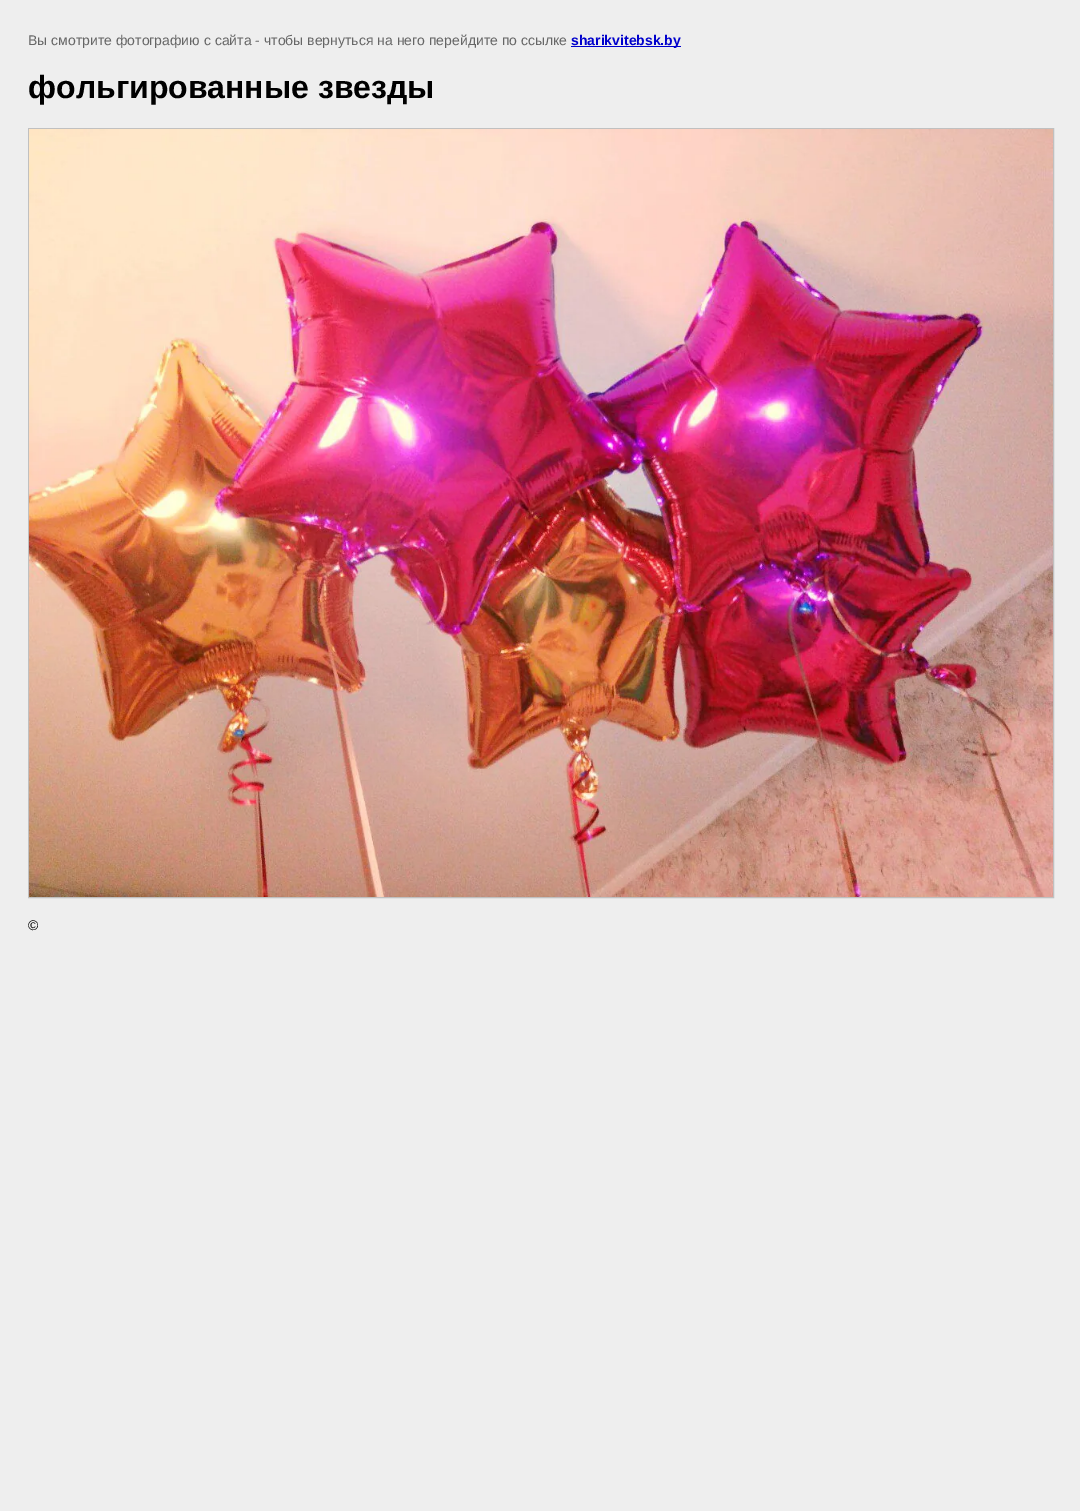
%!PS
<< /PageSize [1080 1511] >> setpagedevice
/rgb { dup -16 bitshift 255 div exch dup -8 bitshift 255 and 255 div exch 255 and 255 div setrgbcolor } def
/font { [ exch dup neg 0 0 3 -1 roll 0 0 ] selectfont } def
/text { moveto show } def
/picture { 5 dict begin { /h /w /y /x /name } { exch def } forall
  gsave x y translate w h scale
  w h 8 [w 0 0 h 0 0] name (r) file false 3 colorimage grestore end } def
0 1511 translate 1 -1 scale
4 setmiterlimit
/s1 { /LiberationSans-Regular 14 font 16#666666 rgb } def
/s2 { /LiberationSans-Bold 14 font 16#0000CC rgb } def
/s3 { /LiberationSans-Bold 32 font 16#000000 rgb } def
/s4 { /LiberationSans-Regular 14 font 16#000000 rgb } def
16#EEEEEE rgb
0 0 1080 1511 rectfill
s1
(Вы смотрите фотографию с сайта - чтобы вернуться на него перейдите по ссылке) 28 45 text
16#0000CC rgb
571 46 110 1 rectfill
s2
(sharikvitebsk.by) 571 45 text
s3
(фольгированные звезды) 28 98 text
16#C0C0C0 rgb
28.5 128.5 1025 769 rectstroke
(pic1.raw) 29 129 1024 768 picture
s4
(©) 28 930 text
showpage
